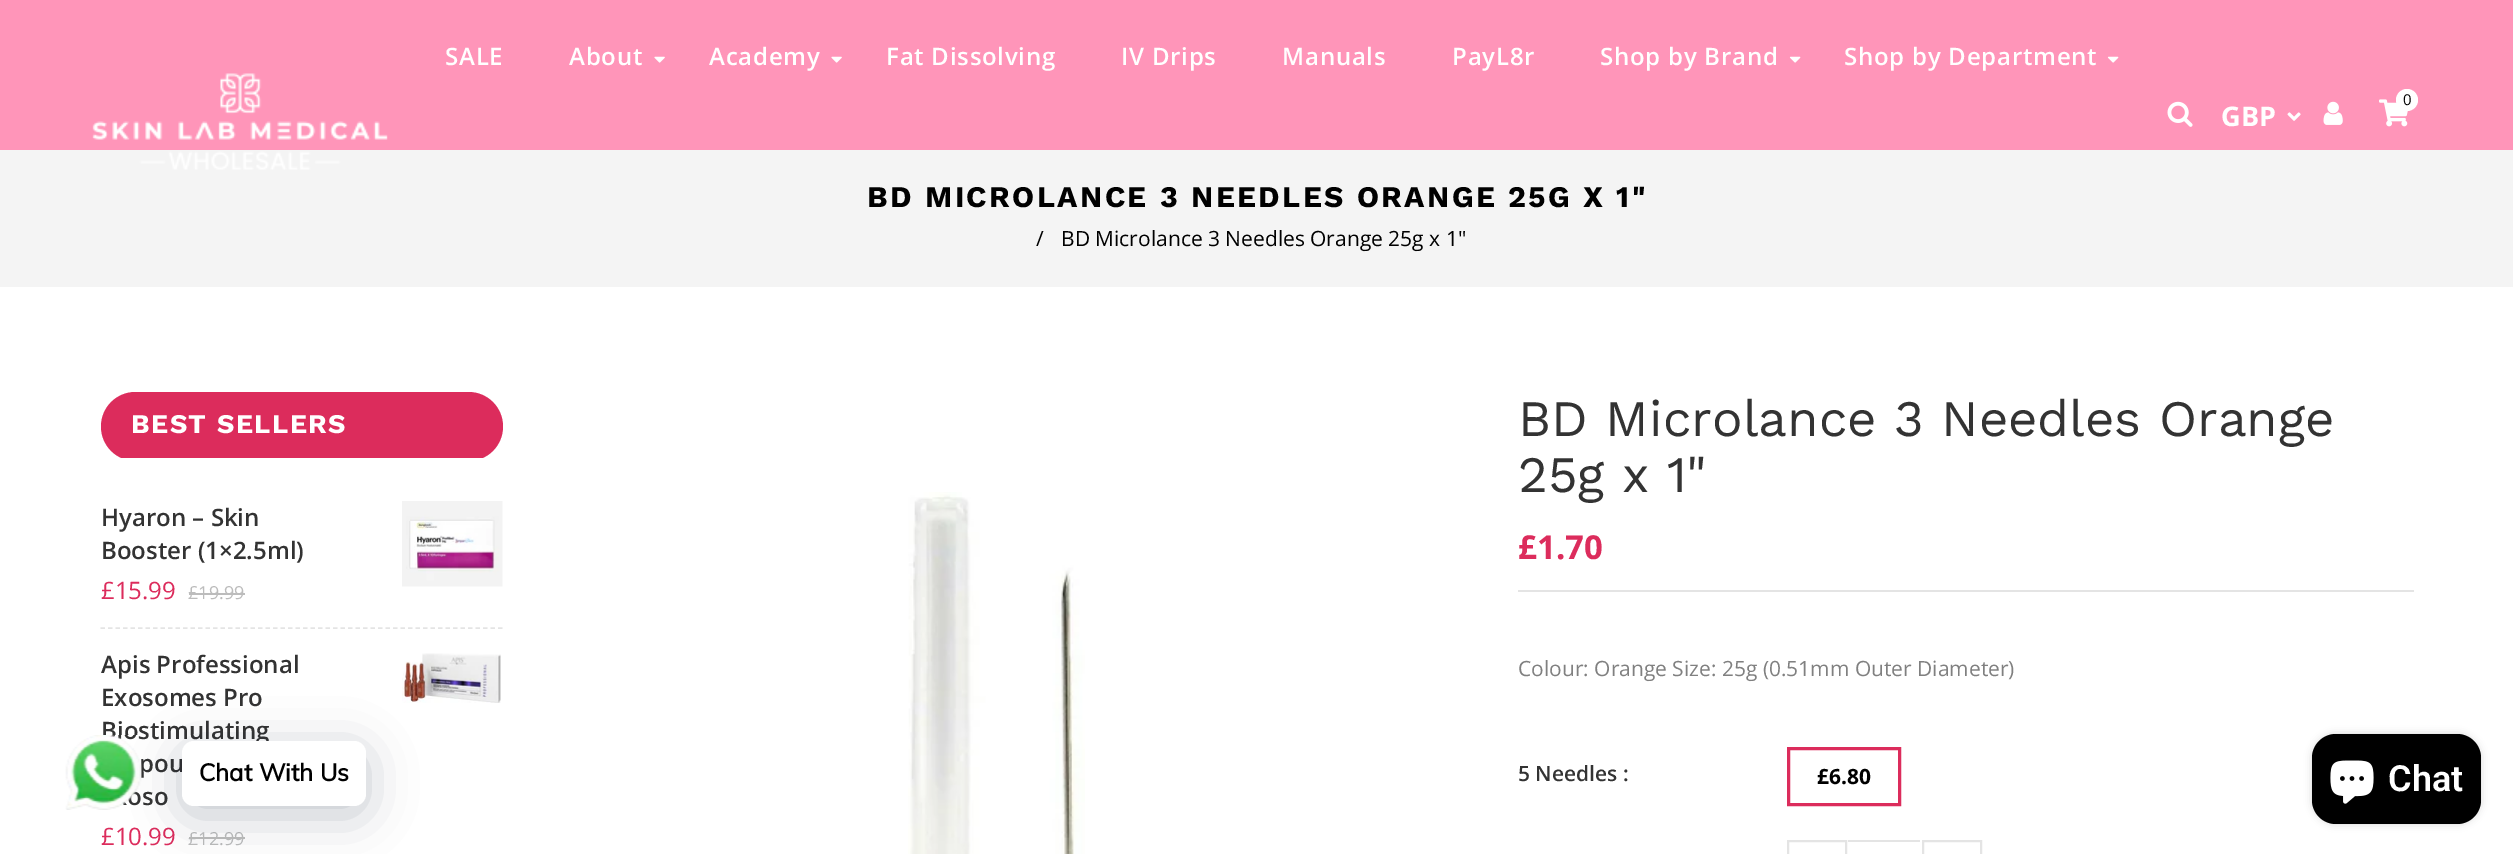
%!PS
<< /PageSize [2513 854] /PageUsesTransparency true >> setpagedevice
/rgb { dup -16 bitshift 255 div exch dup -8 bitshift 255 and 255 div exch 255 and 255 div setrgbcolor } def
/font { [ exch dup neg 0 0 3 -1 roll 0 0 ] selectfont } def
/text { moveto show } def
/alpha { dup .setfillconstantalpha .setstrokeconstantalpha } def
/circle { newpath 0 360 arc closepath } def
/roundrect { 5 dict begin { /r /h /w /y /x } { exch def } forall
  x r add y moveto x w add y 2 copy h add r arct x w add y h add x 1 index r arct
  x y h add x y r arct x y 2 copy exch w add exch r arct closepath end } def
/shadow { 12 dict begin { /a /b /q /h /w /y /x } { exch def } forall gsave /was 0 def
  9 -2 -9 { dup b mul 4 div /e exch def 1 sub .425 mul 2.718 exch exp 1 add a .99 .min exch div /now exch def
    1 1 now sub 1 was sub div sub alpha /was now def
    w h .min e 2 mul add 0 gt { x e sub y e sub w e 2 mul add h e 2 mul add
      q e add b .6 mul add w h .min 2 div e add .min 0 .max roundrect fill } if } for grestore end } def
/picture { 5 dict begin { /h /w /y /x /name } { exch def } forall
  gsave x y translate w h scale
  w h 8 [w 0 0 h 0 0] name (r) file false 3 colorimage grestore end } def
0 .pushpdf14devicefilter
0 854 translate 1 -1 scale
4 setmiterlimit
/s1 { /OpenSans-Bold 27 font 16#FFFFFF rgb } def
/s2 { /OpenSans-Regular 15 font 16#000000 rgb } def
/s3 { /OpenSans-Regular 21 font 16#000000 rgb } def
/s4 { /OpenSans-SemiBold 24 font 16#333333 rgb } def
/s5 { /OpenSans-Regular 24 font 16#DC2C5C rgb } def
/s6 { /OpenSans-Regular 18 font 16#BCBCBC rgb } def
/s7 { /WorkSans-Regular 51 font 16#333333 rgb } def
/s8 { /OpenSans-Bold 33 font 16#DC2C5C rgb } def
/s9 { /OpenSans-Regular 21 font 16#808080 rgb } def
/s10 { /OpenSans-SemiBold 21 font 16#333333 rgb } def
/s11 { /OpenSans-Bold 21 font 16#000000 rgb } def
/s12 { /Muli-Bold 24 font 16#000000 rgb } def
/s13 { /Roboto-SemiBold 36 font 16#FFFFFF rgb } def
16#FFFFFF rgb
0 0 2513 854 rectfill
16#FF95B9 rgb
0 0 2513 150 rectfill
/OpenSans-SemiBold 24 font
16#FFFFFF rgb
445 65 moveto 0.75 0 (SALE) ashow
569 65 moveto 0.75 0 (About) ashow
(pic1.raw) 654 56 11 7 picture
709 65 moveto 0.75 0 (Academy) ashow
(pic1.raw) 831 56 11 7 picture
886 65 moveto 0.75 0 (Fat Dissolving) ashow
1121 65 moveto 0.75 0 (IV Drips) ashow
1282 65 moveto 0.75 0 (Manuals) ashow
1452 65 moveto 0.75 0 (PayL8r) ashow
1600 65 moveto 0.75 0 (Shop by Brand) ashow
(pic2.raw) 1789 56 12 7 picture
1844 65 moveto 0.75 0 (Shop by Department) ashow
(pic2.raw) 2107 56 12 7 picture
16#F4F4F4 rgb
0 150 2513 137 rectfill
(pic3.raw) 92 73 296 97 picture
(pic4.raw) 2167 101 26 26 picture
s1
(GBP) 2221 126 text
(pic5.raw) 2287 112 14 9 picture
(pic6.raw) 2323 101 20 24 picture
(pic7.raw) 2379 99 29 28 picture
2407 100 11 circle fill
s2
(0) 2403 105 text
/WorkSans-Bold 30 font
867 207 moveto 2.4 0 (BD MICROLANCE 3 NEEDLES ORANGE 25G X 1") ashow
s3
(/) 1036 246 text
(BD Microlance 3 Needles Orange 25g x 1") 1061 246 text
16#DC2C5C rgb
101 392 402 69 34.5 roundrect fill
16#FFFFFF rgb
119 458 367 3 rectfill
/WorkSans-Bold 27 font
131 433 moveto 1.5 0 (BEST SELLERS) ashow
16#E4E4E4 rgb
1.5 setlinewidth
[4.5 3] 0 setdash
100.5 628 moveto 502.5 628 lineto stroke
s4
(Hyaron – Skin) 101 526 text
(Booster \(1×2.5ml\)) 101 559 text
s5
(£15.99) 101 599 text
s6
(£19.99) 188 599 text
189 593 56 2 rectfill
(pic8.raw) 402 501 101 86 picture
s4
(Apis Professional) 101 673 text
(Exosomes Pro) 101 706 text
(Biostimulating) 101 739 text
(pou) 139 772 text
(so) 142 805 text
s5
(£10.99) 101 845 text
s6
(£12.99) 188 845 text
189 837 56 2 rectfill
(pic9.raw) 402 653 99 50 picture
(pic10.raw) 908 492 177 362 picture
s7
(BD Microlance 3 Needles Orange) 1518 436 text
(25g x 1") 1518 492 text
s8
(£1.70) 1518 559 text
16#E4E4E4 rgb
1518 590 896 2 rectfill
s9
(Colour: Orange Size: 25g \(0.51mm Outer Diameter\)) 1518 676 text
s10
(5 Needles :) 1518 781 text
16#DC2C5C rgb
3 setlinewidth
[] 0 setdash
1788.5 748.5 111 56 rectstroke
s11
(£6.80) 1817 784 text
16#E4E4E4 rgb
2 setlinewidth
1788 841 58 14 rectstroke
1848 840 72 2 rectfill
1923 841 58 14 rectstroke
(pic11.raw) 65 735 77 75 picture
16#00122E rgb
182 750 184 65 12 24 0.24 shadow
16#FFFFFF rgb
182 741 184 65 12 roundrect fill
s12
(Chat With Us) 199 781 text
2312 734 169 90 24 4 0.15 shadow
2312 734 169 90 24 roundrect fill
(pic12.raw) 2330 760 44 44 picture
s13
(Chat) 2388 791 text
.poppdf14devicefilter showpage
